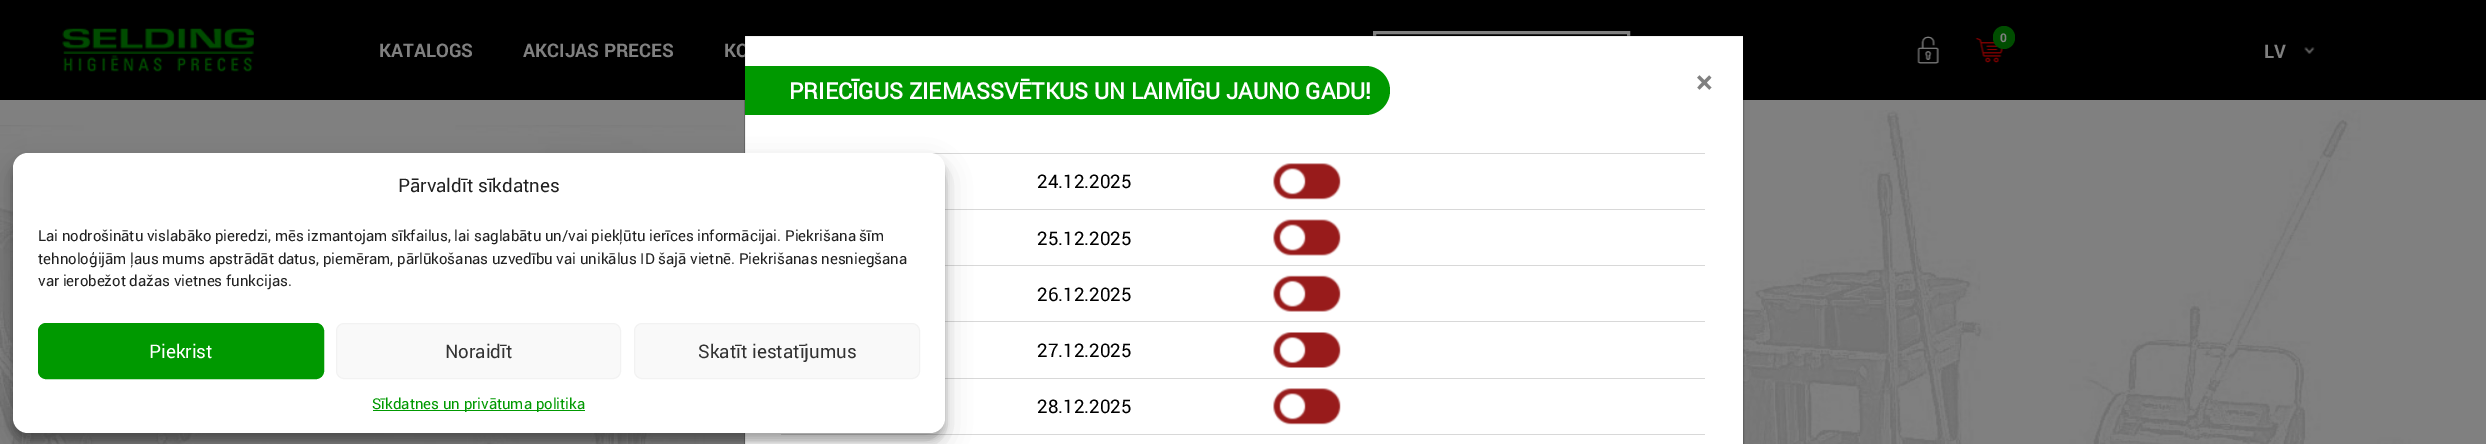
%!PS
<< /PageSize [2486 444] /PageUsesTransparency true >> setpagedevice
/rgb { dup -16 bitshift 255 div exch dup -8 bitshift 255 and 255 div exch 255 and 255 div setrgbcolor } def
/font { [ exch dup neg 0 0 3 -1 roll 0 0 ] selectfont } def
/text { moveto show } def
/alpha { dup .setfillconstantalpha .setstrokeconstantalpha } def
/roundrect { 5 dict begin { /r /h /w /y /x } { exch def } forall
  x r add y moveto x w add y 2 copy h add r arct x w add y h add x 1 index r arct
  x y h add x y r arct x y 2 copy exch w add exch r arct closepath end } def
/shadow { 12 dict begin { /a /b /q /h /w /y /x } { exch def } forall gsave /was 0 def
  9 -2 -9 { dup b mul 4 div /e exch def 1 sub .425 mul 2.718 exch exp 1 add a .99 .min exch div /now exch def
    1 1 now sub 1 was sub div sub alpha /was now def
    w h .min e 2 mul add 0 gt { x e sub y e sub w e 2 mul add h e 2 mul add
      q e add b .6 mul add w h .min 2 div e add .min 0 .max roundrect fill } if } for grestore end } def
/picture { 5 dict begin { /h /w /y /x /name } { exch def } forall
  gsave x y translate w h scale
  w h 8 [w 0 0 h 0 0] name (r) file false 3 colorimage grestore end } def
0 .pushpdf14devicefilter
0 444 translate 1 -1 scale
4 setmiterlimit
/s1 { /Roboto-Bold 12 font 16#808080 rgb } def
/s2 { /Roboto-Bold 18.75 font 16#808080 rgb } def
/s3 { /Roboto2-Bold 22.5 font 16#FFFFFF rgb } def
/s4 { /Roboto-Regular 18.75 font 16#000000 rgb } def
/s5 { /Roboto2-Bold 30 font 16#808080 rgb } def
/s6 { /Roboto-Regular 18.75 font 16#222222 rgb } def
/s7 { /Roboto-Regular 15 font 16#222222 rgb } def
/s8 { /Roboto-Regular 18.75 font 16#FFFFFF rgb } def
/s9 { /Roboto-Regular 18.75 font 16#333333 rgb } def
/s10 { /Roboto-Regular 15 font 16#009900 rgb } def
16#808080 rgb
0 0 2486 444 rectfill
16#000000 rgb
0 0 2486 100 rectfill
(pic1.raw) 62 28 192 44 picture
16#808080 rgb
3 setlinewidth
1374.5 32.5 254 35 rectstroke
(pic2.raw) 1917 36 22 28 picture
(pic3.raw) 1975 38 28 25 picture
16#004D00 rgb
1993 26 22 23 11 roundrect fill
s1
(0) 2000 42 text
s2
(KATALOGS) 379 57 text
(AKCIJAS PRECES) 523 57 text
(KO) 724 57 text
(pic4.raw) 2304 47 11 7 picture
(LV) 2264 58 text
(pic5.raw) 0 125 745 319 picture
16#FFFFFF rgb
745 36 998 408 rectfill
(pic10.raw) 1743 110 743 334 picture
0.2 alpha
16#000000 rgb
1 setlinewidth
744.5 35.5 999 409 rectstroke
1 alpha
16#009900 rgb
745 66 moveto 1365.5 66 lineto 1379 66 1390 77 1390 90.5 curveto 1390 104 1379 115 1365.5 115 curveto 745 115 lineto closepath fill
s3
(PRIECĪGUS ZIEMASSVĒTKUS UN LAIMĪGU JAUNO GADU!) 789 99 text
16#D8D8D8 rgb
930 153 775 1 rectfill
s4
(24.12.2025) 1037 188 text
(pic6.raw) 1273 163 68 37 picture
16#D8D8D8 rgb
945 209 760 1 rectfill
s4
(25.12.2025) 1037 245 text
(pic7.raw) 1273 219 68 37 picture
16#D8D8D8 rgb
945 265 760 1 rectfill
s4
(26.12.2025) 1037 301 text
(pic8.raw) 1273 275 68 37 picture
16#D8D8D8 rgb
945 321 760 1 rectfill
s4
(27.12.2025) 1037 357 text
(pic9.raw) 1273 332 68 36 picture
16#D8D8D8 rgb
945 378 760 1 rectfill
s4
(28.12.2025) 1037 413 text
(pic6.raw) 1273 388 68 37 picture
16#D8D8D8 rgb
781 434 924 1 rectfill
s5
(×) 1696 93 text
16#000000 rgb
13 160 932 280 15 4 0.23 shadow
13 165 932 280 15 12.5 0.19 shadow
16#FFFFFF rgb
13 153 932 280 15 roundrect fill
s6
(Pārvaldīt sīkdatnes) 398 192 text
s7
(Lai nodrošinātu vislabāko pieredzi, mēs izmantojam sīkfailus, lai saglabātu un/vai piekļūtu ierīces informācijai. Piekrišana šīm) 38 241 text
(tehnoloģijām ļaus mums apstrādāt datus, piemēram, pārlūkošanas uzvedību vai unikālus ID šajā vietnē. Piekrišanas nesniegšana) 38 264 text
(var ierobežot dažas vietnes funkcijas.) 38 286 text
16#009900 rgb
38.5 323.5 285 55 7.5 roundrect gsave fill grestore
stroke
s8
(Piekrist) 149 358 text
16#F9F9F9 rgb
336.5 323.5 284 55 7.5 roundrect gsave fill grestore
16#F2F2F2 rgb
stroke
s9
(Noraidīt) 445 358 text
16#F9F9F9 rgb
634.5 323.5 285 55 7.5 roundrect gsave fill grestore
16#F2F2F2 rgb
stroke
s9
(Skatīt iestatījumus) 698 358 text
16#009900 rgb
373 410 212 1 rectfill
s10
(Sīkdatnes un privātuma politika) 372 409 text
.poppdf14devicefilter showpage
